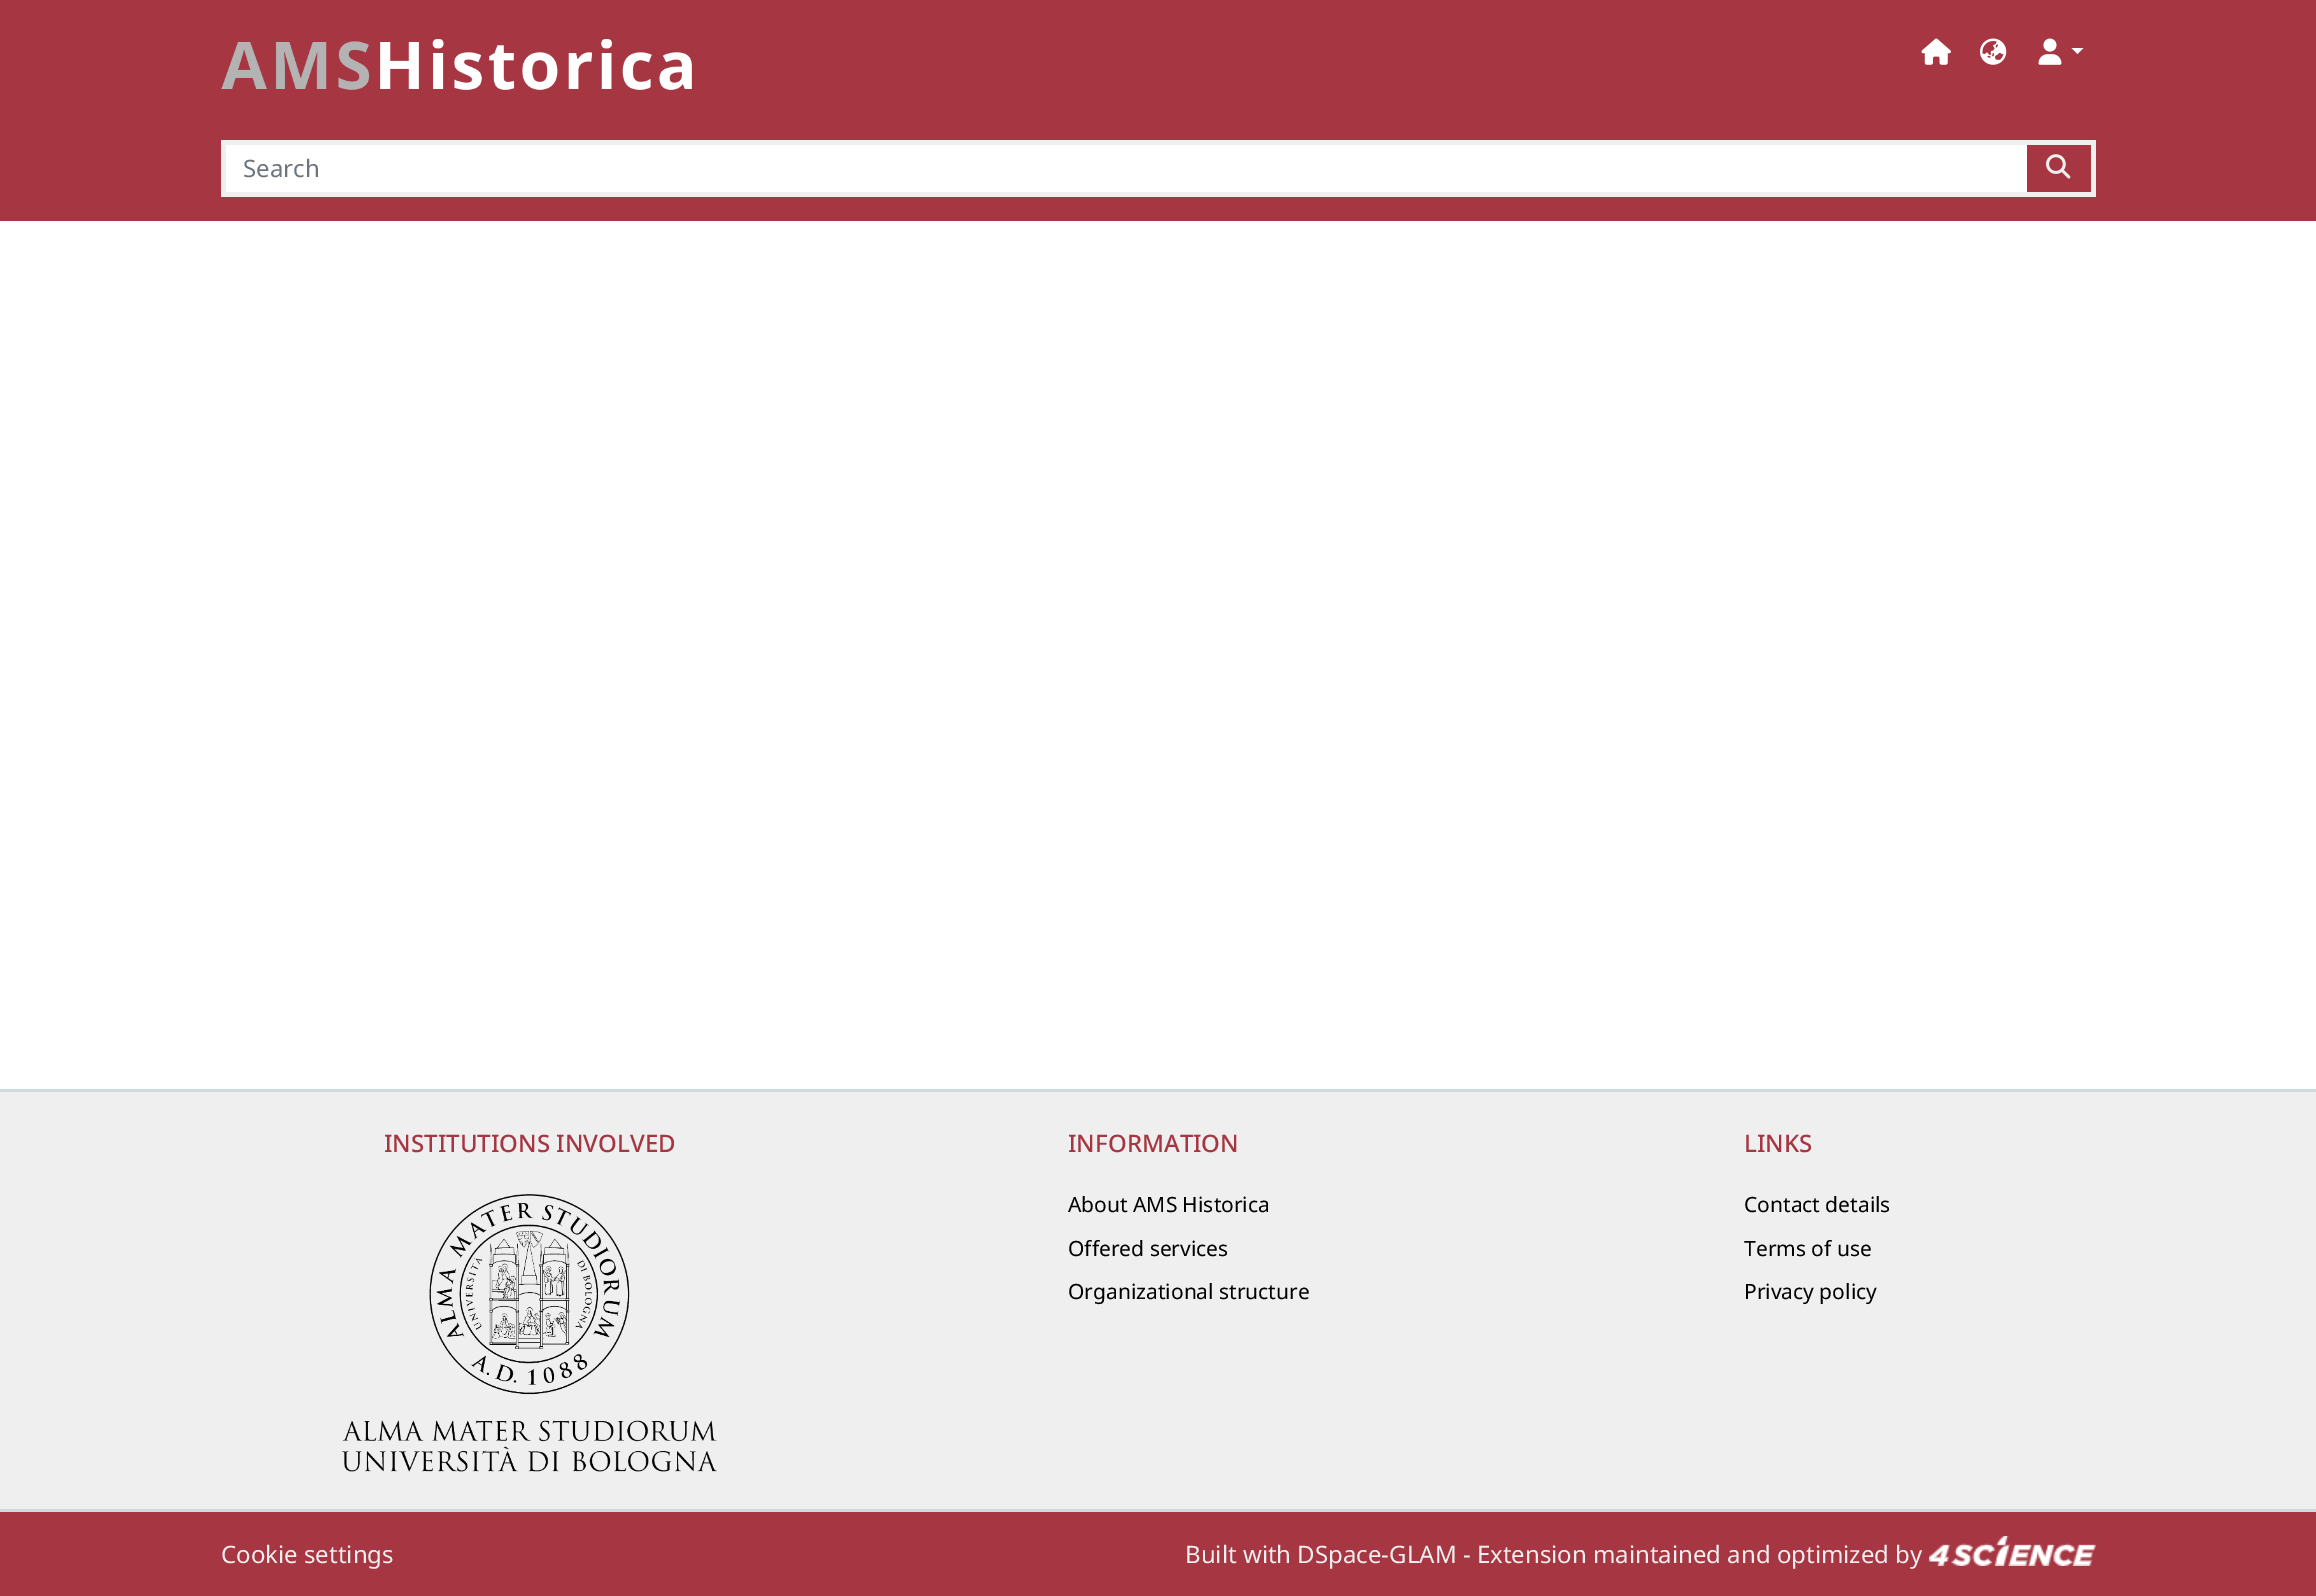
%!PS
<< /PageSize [2316 1596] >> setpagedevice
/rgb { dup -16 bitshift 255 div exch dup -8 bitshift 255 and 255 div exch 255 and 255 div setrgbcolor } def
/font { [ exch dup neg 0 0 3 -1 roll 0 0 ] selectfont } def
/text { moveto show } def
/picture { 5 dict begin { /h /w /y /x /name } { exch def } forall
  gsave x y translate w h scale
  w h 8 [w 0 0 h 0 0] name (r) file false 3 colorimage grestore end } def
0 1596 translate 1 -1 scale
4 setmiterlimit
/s1 { /NotoSans-Regular 24 font 16#6C757D rgb } def
/s2 { /NotoSans-Medium 24 font 16#A63642 rgb } def
/s3 { /NotoSans-Regular 21 font 16#000000 rgb } def
/s4 { /NotoSans-Regular 24 font 16#EFEFEF rgb } def
16#FFFFFF rgb
0 0 2316 1596 rectfill
16#A63642 rgb
0 0 2316 221 rectfill
(pic1.raw) 221 39 471 51 picture
(pic2.raw) 1921 38 30 27 picture
(pic3.raw) 1980 38 27 27 picture
(pic4.raw) 2038 38 24 27 picture
16#FFFFFF rgb
2071.5 48 moveto 2083.5 48 lineto 2077.5 54 lineto closepath fill
226 145 1801 47 rectfill
16#EFEFEF rgb
221 140 1875 5 rectfill
221 192 1806 5 rectfill
221 140 5 57 rectfill
s1
(Search) 243 177 text
16#EFEFEF rgb
2091 140 5 57 rectfill
2025 192 71 5 rectfill
(pic5.raw) 2046 154 25 25 picture
0 1092 2316 417 rectfill
16#CDDCE2 rgb
0 1089 2316 3 rectfill
0 1509 2316 3 rectfill
s2
(INSTITUTIONS INVOLVED) 384 1152 text
(pic6.raw) 342 1194 375 278 picture
(INFORMATION) 1068 1152 text
s3
(About AMS Historica) 1068 1212 text
(Offered services) 1068 1256 text
(Organizational structure) 1068 1299 text
s2
(LINKS) 1744 1152 text
s3
(Contact details) 1744 1212 text
(Terms of use) 1744 1256 text
(Privacy policy) 1744 1299 text
16#A63642 rgb
0 1512 2316 84 rectfill
s4
(Cookie settings) 221 1563 text
(Built with DSpace-GLAM - Extension maintained and optimized by) 1185 1563 text
(pic7.raw) 1929 1536 167 30 picture
showpage
